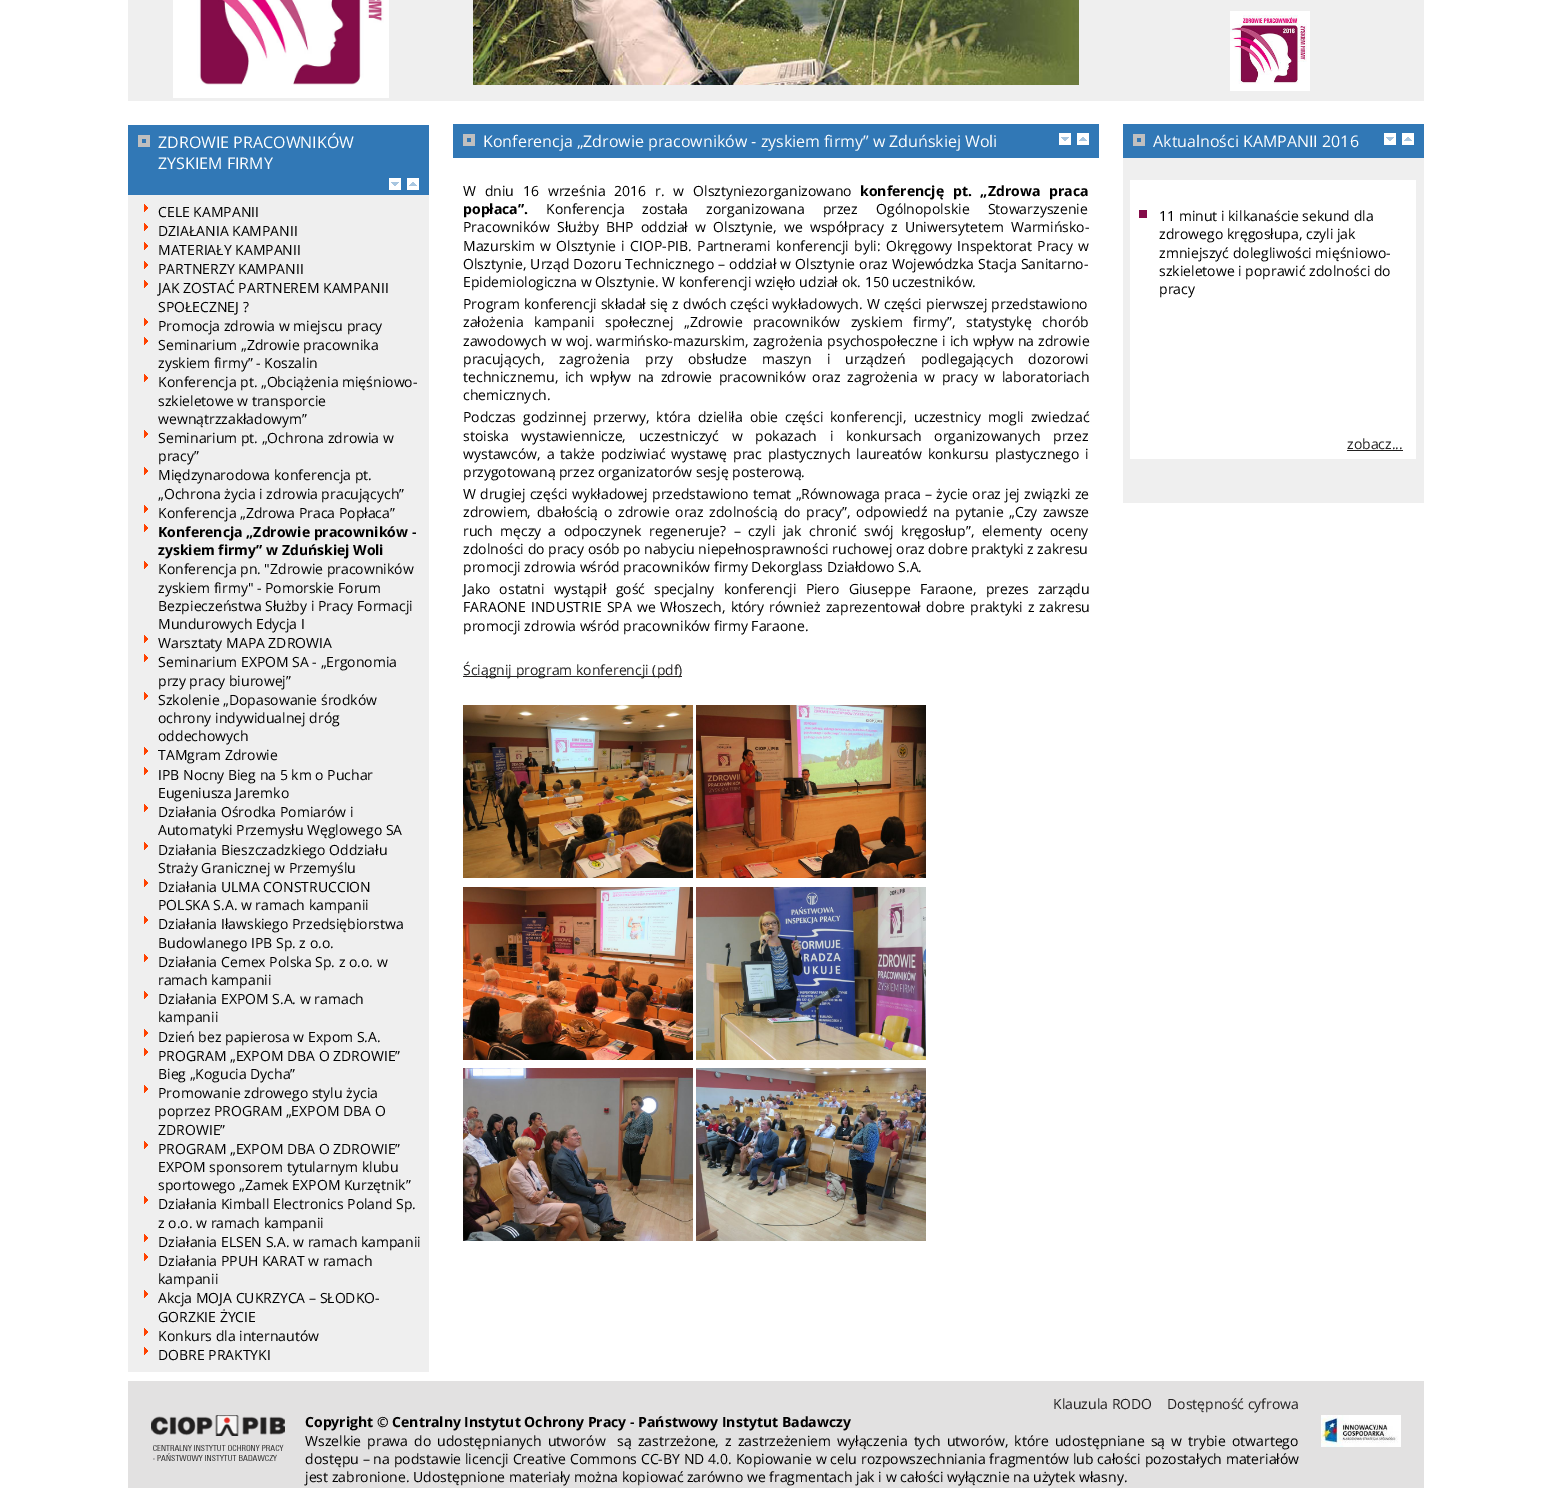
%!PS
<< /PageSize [1551 1488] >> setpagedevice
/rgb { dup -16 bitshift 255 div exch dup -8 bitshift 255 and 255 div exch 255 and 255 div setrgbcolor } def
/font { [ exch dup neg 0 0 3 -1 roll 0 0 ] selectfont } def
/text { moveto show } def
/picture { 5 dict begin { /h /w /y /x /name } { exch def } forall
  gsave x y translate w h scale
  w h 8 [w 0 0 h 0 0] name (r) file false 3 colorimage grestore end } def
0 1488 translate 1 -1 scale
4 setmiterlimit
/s1 { /OpenSans-Regular 16 font 16#FFFFFF rgb } def
/s2 { /OpenSans-Regular 14 font 16#000000 rgb } def
/s3 { /OpenSans-Bold 14 font 16#000000 rgb } def
/s4 { /OpenSans-Regular 14 font 16#222020 rgb } def
16#FFFFFF rgb
0 0 1551 1488 rectfill
16#EFEFEF rgb
128 0 1296 101 rectfill
(pic1.raw) 173 0 216 98 picture
(pic2.raw) 473 0 606 85 picture
(pic3.raw) 1230 11 80 80 picture
16#3178B6 rgb
128 125 301 70 rectfill
(pic4.raw) 138 135 12 12 picture
s1
(ZDROWIE PRACOWNIKÓW) 158 148 text
(ZYSKIEM FIRMY) 158 169 text
(pic5.raw) 389 178 30 12 picture
16#EFEFEF rgb
128 195 301 1177 rectfill
(pic6.raw) 144 204 4 8 picture
s2
(CELE KAMPANII) 158 217 text
(pic6.raw) 144 223 4 8 picture
(DZIAŁANIA KAMPANII) 158 236 text
(pic6.raw) 144 242 4 8 picture
(MATERIAŁY KAMPANII) 158 255 text
(pic6.raw) 144 261 4 8 picture
(PARTNERZY KAMPANII) 158 274 text
(pic6.raw) 144 280 4 8 picture
(JAK ZOSTAĆ PARTNEREM KAMPANII) 158 293 text
(SPOŁECZNEJ ?) 158 312 text
(pic6.raw) 144 318 4 8 picture
(Promocja zdrowia w miejscu pracy) 158 331 text
(pic6.raw) 144 337 4 8 picture
(Seminarium „Zdrowie pracownika) 158 350 text
(zyskiem firmy” - Koszalin) 158 368 text
(pic6.raw) 144 374 4 8 picture
(Konferencja pt. „Obciążenia mięśniowo-) 158 387 text
(szkieletowe w transporcie) 158 406 text
(wewnątrzzakładowym”) 158 424 text
(pic6.raw) 144 430 4 8 picture
(Seminarium pt. „Ochrona zdrowia w) 158 443 text
(pracy”) 158 461 text
(pic6.raw) 144 467 4 8 picture
(Międzynarodowa konferencja pt.) 158 480 text
(„Ochrona życia i zdrowia pracujących”) 158 499 text
(pic6.raw) 144 505 4 8 picture
(Konferencja „Zdrowa Praca Popłaca”) 158 518 text
(pic6.raw) 144 524 4 8 picture
s3
(Konferencja „Zdrowie pracowników -) 158 537 text
(zyskiem firmy” w Zduńskiej Woli) 158 555 text
(pic6.raw) 144 561 4 8 picture
s2
(Konferencja pn. "Zdrowie pracowników) 158 574 text
(zyskiem firmy" - Pomorskie Forum) 158 593 text
(Bezpieczeństwa Służby i Pracy Formacji) 158 611 text
(Mundurowych Edycja I) 158 629 text
(pic6.raw) 144 635 4 8 picture
(Warsztaty MAPA ZDROWIA) 158 648 text
(pic6.raw) 144 654 4 8 picture
(Seminarium EXPOM SA - „Ergonomia) 158 667 text
(przy pracy biurowej”) 158 686 text
(pic6.raw) 144 692 4 8 picture
(Szkolenie „Dopasowanie środków) 158 705 text
(ochrony indywidualnej dróg) 158 723 text
(oddechowych) 158 741 text
(pic6.raw) 144 747 4 8 picture
(TAMgram Zdrowie) 158 760 text
(pic6.raw) 144 767 4 8 picture
(IPB Nocny Bieg na 5 km o Puchar) 158 780 text
(Eugeniusza Jaremko) 158 798 text
(pic6.raw) 144 804 4 8 picture
(Działania Ośrodka Pomiarów i) 158 817 text
(Automatyki Przemysłu Węglowego SA) 158 835 text
(pic6.raw) 144 842 4 8 picture
(Działania Bieszczadzkiego Oddziału) 158 855 text
(Straży Granicznej w Przemyślu) 158 873 text
(pic6.raw) 144 879 4 8 picture
(Działania ULMA CONSTRUCCION) 158 892 text
(POLSKA S.A. w ramach kampanii) 158 910 text
(pic6.raw) 144 916 4 8 picture
(Działania Iławskiego Przedsiębiorstwa) 158 929 text
(Budowlanego IPB Sp. z o.o.) 158 948 text
(pic6.raw) 144 954 4 8 picture
(Działania Cemex Polska Sp. z o.o. w) 158 967 text
(ramach kampanii) 158 985 text
(pic6.raw) 144 991 4 8 picture
(Działania EXPOM S.A. w ramach) 158 1004 text
(kampanii) 158 1022 text
(pic6.raw) 144 1029 4 8 picture
(Dzień bez papierosa w Expom S.A.) 158 1042 text
(pic6.raw) 144 1048 4 8 picture
(PROGRAM „EXPOM DBA O ZDROWIE”) 158 1061 text
(Bieg „Kogucia Dycha”) 158 1079 text
(pic6.raw) 144 1085 4 8 picture
(Promowanie zdrowego stylu życia) 158 1098 text
(poprzez PROGRAM „EXPOM DBA O) 158 1116 text
(ZDROWIE”) 158 1135 text
(pic6.raw) 144 1141 4 8 picture
(PROGRAM „EXPOM DBA O ZDROWIE”) 158 1154 text
(EXPOM sponsorem tytularnym klubu) 158 1172 text
(sportowego „Zamek EXPOM Kurzętnik”) 158 1190 text
(pic6.raw) 144 1196 4 8 picture
(Działania Kimball Electronics Poland Sp.) 158 1209 text
(z o.o. w ramach kampanii) 158 1228 text
(pic6.raw) 144 1234 4 8 picture
(Działania ELSEN S.A. w ramach kampanii) 158 1247 text
(pic6.raw) 144 1253 4 8 picture
(Działania PPUH KARAT w ramach) 158 1266 text
(kampanii) 158 1284 text
(pic6.raw) 144 1290 4 8 picture
(Akcja MOJA CUKRZYCA – SŁODKO-) 158 1303 text
(GORZKIE ŻYCIE) 158 1322 text
(pic6.raw) 144 1328 4 8 picture
(Konkurs dla internautów) 158 1341 text
(pic6.raw) 144 1347 4 8 picture
(DOBRE PRAKTYKI) 158 1360 text
16#3178B6 rgb
453 124 646 34 rectfill
(pic4.raw) 463 134 12 12 picture
s1
(Konferencja „Zdrowie pracowników - zyskiem firmy” w Zduńskiej Woli) 483 147 text
(pic5.raw) 1059 133 30 12 picture
/OpenSans-Regular 14 font
16#000000 rgb
463 196 moveto 5.25 0 32 (W dniu 16 września 2016 r. w Olsztyniezorganizowano) widthshow
/OpenSans-Bold 14 font
860 196 moveto 5.25 0 32 (konferencję pt. „Zdrowa praca) widthshow
(popłaca”.) 463 214 text
/OpenSans-Regular 14 font
546 214 moveto 14.5 0 32 (Konferencja została zorganizowana przez Ogólnopolskie Stowarzyszenie) widthshow
463 232 moveto 3.6 0 32 (Pracowników Służby BHP oddział w Olsztynie, we współpracy z Uniwersytetem Warmińsko-) widthshow
463 251 moveto 1.75 0 32 (Mazurskim w Olsztynie i CIOP-PIB. Partnerami konferencji byli: Okręgowy Inspektorat Pracy w) widthshow
463 269 moveto 0.5 0 32 (Olsztynie, Urząd Dozoru Technicznego – oddział w Olsztynie oraz Wojewódzka Stacja Sanitarno-) widthshow
(Epidemiologiczna w Olsztynie. W konferencji wzięło udział ok. 150 uczestników.) 463 287 text
463 309 moveto 0.5 0 32 (Program konferencji składał się z dwóch części wykładowych. W części pierwszej przedstawiono) widthshow
463 327 moveto 7 0 32 (założenia kampanii społecznej „Zdrowie pracowników zyskiem firmy”, statystykę chorób) widthshow
463 346 moveto 0.5 0 32 (zawodowych w woj. warmińsko-mazurskim, zagrożenia psychospołeczne i ich wpływ na zdrowie) widthshow
463 364 moveto 11.5 0 32 (pracujących, zagrożenia przy obsłudze maszyn i urządzeń podlegających dozorowi) widthshow
463 382 moveto 3 0 32 (technicznemu, ich wpływ na zdrowie pracowników oraz zagrożenia w pracy w laboratoriach) widthshow
(chemicznych.) 463 400 text
463 422 moveto 3.4 0 32 (Podczas godzinnej przerwy, która dzieliła obie części konferencji, uczestnicy mogli zwiedzać) widthshow
463 441 moveto 9 0 32 (stoiska wystawiennicze, uczestniczyć w pokazach i konkursach organizowanych przez) widthshow
463 459 moveto 2.25 0 32 (wystawców, a także podziwiać wystawę prac plastycznych laureatów konkursu plastycznego i) widthshow
(przygotowaną przez organizatorów sesję posterową.) 463 477 text
463 499 moveto 0.6 0 32 (W drugiej części wykładowej przedstawiono temat „Równowaga praca – życie oraz jej związki ze) widthshow
463 517 moveto 2 0 32 (zdrowiem, dbałością o zdrowie oraz zdolnością do pracy”, odpowiedź na pytanie „Czy zawsze) widthshow
463 536 moveto 3.75 0 32 (ruch męczy a odpoczynek regeneruje? – czyli jak chronić swój kręgosłup”, elementy oceny) widthshow
(zdolności do pracy osób po nabyciu niepełnosprawności ruchowej oraz dobre praktyki z zakresu) 463 554 text
(promocji zdrowia wśród pracowników firmy Dekorglass Działdowo S.A.) 463 572 text
463 594 moveto 5.5 0 32 (Jako ostatni wystąpił gość specjalny konferencji Piero Giuseppe Faraone, prezes zarządu) widthshow
463 612 moveto 1.5 0 32 (FARAONE INDUSTRIE SPA we Włoszech, który również zaprezentował dobre praktyki z zakresu) widthshow
(promocji zdrowia wśród pracowników firmy Faraone.) 463 631 text
16#222020 rgb
463 676 219 1 rectfill
(Ściągnij program konferencji \(pdf\)) 463 675 text
(pic7.raw) 463 705 230 173 picture
(pic8.raw) 696 705 230 173 picture
(pic9.raw) 463 887 230 173 picture
(pic10.raw) 696 887 230 173 picture
(pic11.raw) 463 1068 230 173 picture
(pic12.raw) 696 1068 230 173 picture
16#EFEFEF rgb
1123 158 301 345 rectfill
16#3178B6 rgb
1123 124 301 34 rectfill
(pic4.raw) 1133 134 12 12 picture
s1
(Aktualności KAMPANII 2016) 1153 147 text
(pic5.raw) 1384 133 30 12 picture
1130 180 286 279 rectfill
16#840C49 rgb
1139 210 8 8 rectfill
s2
(11 minut i kilkanaście sekund dla) 1159 221 text
(zdrowego kręgosłupa, czyli jak) 1159 239 text
(zmniejszyć dolegliwości mięśniowo-) 1159 258 text
(szkieletowe i poprawić zdolności do) 1159 276 text
(pracy) 1159 294 text
s4
(zobacz...) 1347 449 text
1347 450 56 1 rectfill
16#E2E1E1 rgb
128 1381 1296 107 rectfill
(pic13.raw) 151 1415 134 46 picture
s4
(Klauzula RODO) 1053 1409 text
(Dostępność cyfrowa) 1167 1409 text
s3
(Copyright © Centralny Instytut Ochrony Pracy - Państwowy Instytut Badawczy) 305 1427 text
/OpenSans-Regular 14 font
305 1446 moveto 2.4 0 32 (Wszelkie prawa do udostępnianych utworów  są zastrzeżone, z zastrzeżeniem wyłączenia tych utworów, które udostępniane są w trybie otwartego) widthshow
305 1464 moveto 0.25 0 32 (dostępu – na podstawie licencji Creative Commons CC-BY ND 4.0. Kopiowanie w celu rozpowszechniania fragmentów lub całości pozostałych materiałów) widthshow
(jest zabronione. Udostępnione materiały można kopiować zarówno we fragmentach jak i w całości wyłącznie na użytek własny.) 305 1482 text
(pic14.raw) 1321 1415 80 32 picture
showpage
